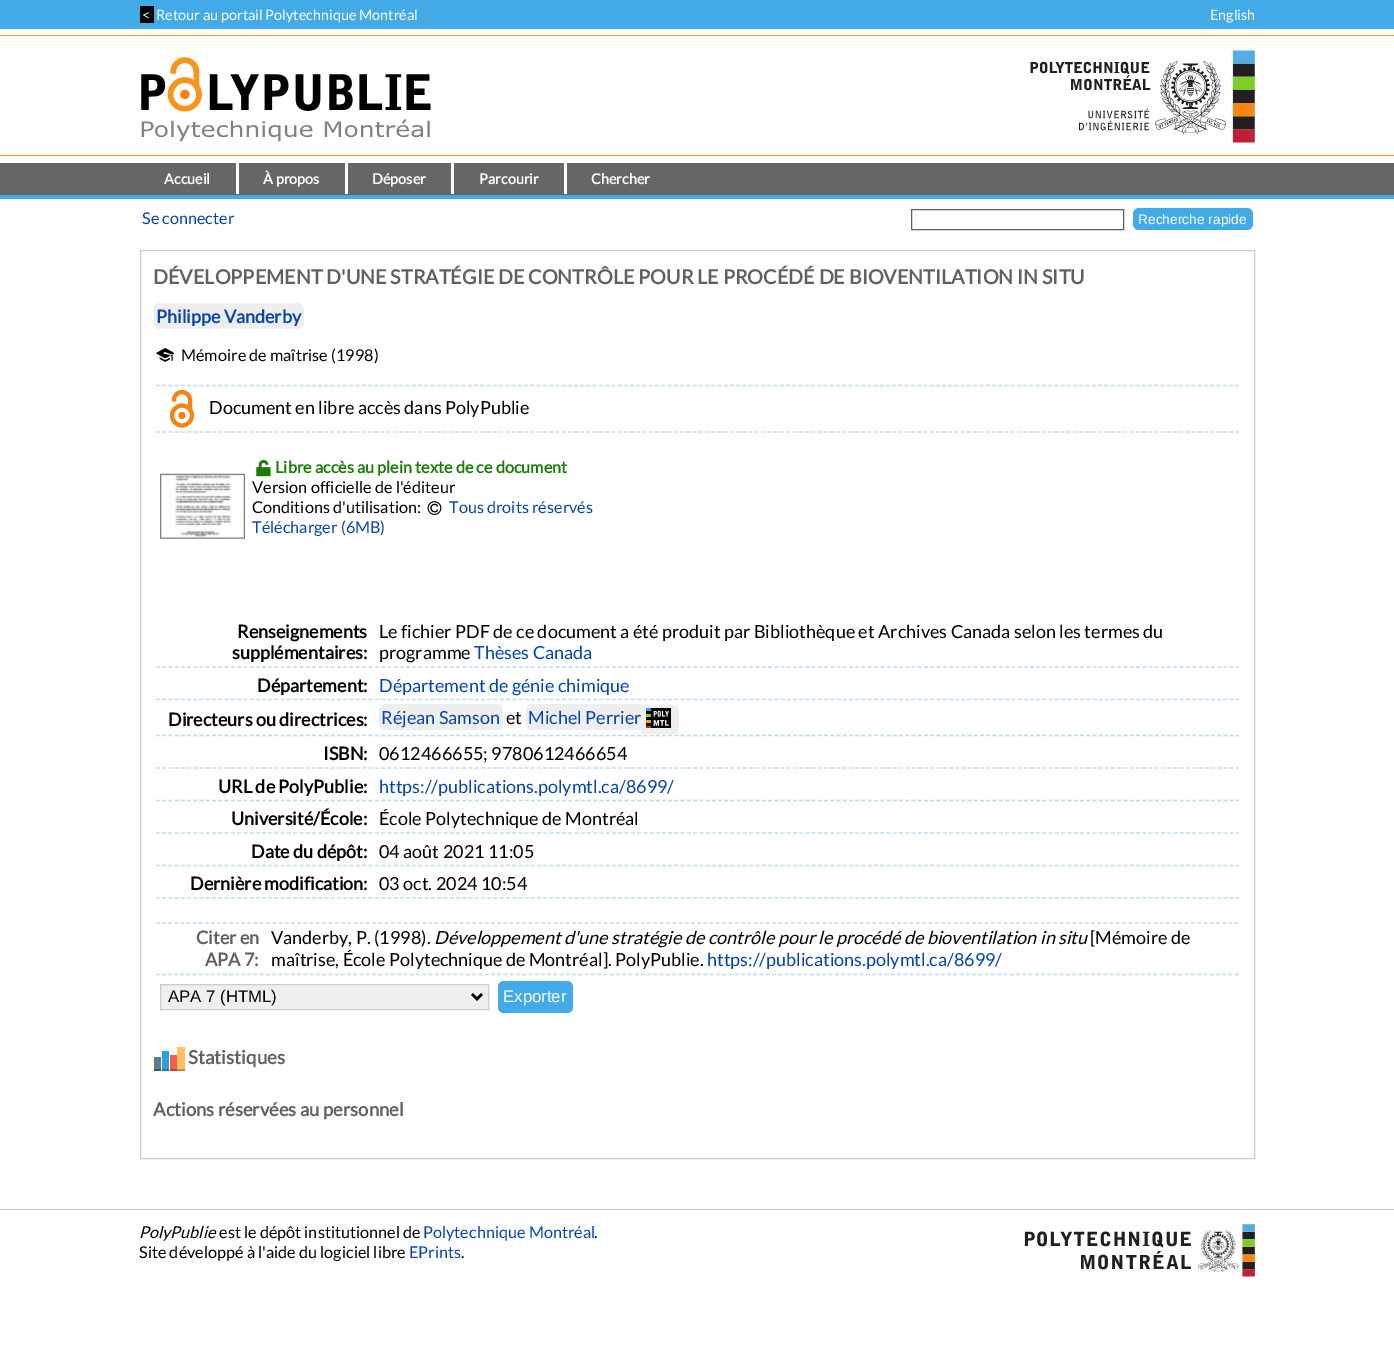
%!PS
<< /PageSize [1394 1354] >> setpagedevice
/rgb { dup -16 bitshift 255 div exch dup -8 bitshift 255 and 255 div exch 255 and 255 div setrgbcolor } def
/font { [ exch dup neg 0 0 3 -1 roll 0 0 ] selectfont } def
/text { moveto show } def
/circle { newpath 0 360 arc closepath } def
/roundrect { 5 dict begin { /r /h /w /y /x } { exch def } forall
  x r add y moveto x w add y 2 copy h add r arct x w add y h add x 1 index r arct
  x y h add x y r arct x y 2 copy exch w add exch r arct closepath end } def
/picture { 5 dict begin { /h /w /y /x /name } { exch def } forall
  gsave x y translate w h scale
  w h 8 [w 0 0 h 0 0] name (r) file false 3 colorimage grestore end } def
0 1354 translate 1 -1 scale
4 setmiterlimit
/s1 { /Lato-Regular 14.4 font 16#FFFFFF rgb } def
/s2 { /Lato-Bold 14.4 font 16#FFFFFF rgb } def
/s3 { /Lato-Regular 16.25 font 16#0645AD rgb } def
/s4 { /LiberationSans-Regular 13.75 font 16#FFFFFF rgb } def
/s5 { /Lato-Bold 19.8 font 16#606060 rgb } def
/s6 { /Lato-Bold 18 font 16#0645AD rgb } def
/s7 { /Lato-Regular 16.25 font 16#000000 rgb } def
/s8 { /Lato-Regular 18 font 16#000000 rgb } def
/s9 { /Lato-Bold 16.25 font 16#197C06 rgb } def
/s10 { /Lato-Bold 18 font 16#000000 rgb } def
/s11 { /Lato-Regular 18 font 16#0645AD rgb } def
/s12 { /Lato-Bold 18 font 16#606060 rgb } def
/s13 { /Lato-Italic 18 font 16#000000 rgb } def
/s14 { /LiberationSans-Regular 16.75 font 16#000000 rgb } def
/s15 { /LiberationSans-Regular 16.75 font 16#FFFFFF rgb } def
/s16 { /Lato-Bold 18.75 font 16#606060 rgb } def
/s17 { /Lato-Bold 18.4 font 16#606060 rgb } def
/s18 { /Lato-Italic 16.25 font 16#000000 rgb } def
16#FFFFFF rgb
0 0 1394 1354 rectfill
16#42AAE7 rgb
0 0 1394 29 rectfill
16#000000 rgb
140 6 14 17 rectfill
s1
(<) 142 20 text
(Retour au portail Polytechnique Montréal) 156 20 text
(English) 1210 20 text
16#FA961E rgb
0 35 1394 1 rectfill
0 155 1394 1 rectfill
(pic1.raw) 141 57 290 85 picture
(pic2.raw) 1030 50 225 93 picture
16#666666 rgb
0 163 1394 32 rectfill
16#42AAE7 rgb
0 195 1394 4 rectfill
16#FFFFFF rgb
236 163 3 31 rectfill
s2
(Accueil) 164 184 text
345 163 3 31 rectfill
(À propos) 263 184 text
451 163 3 31 rectfill
(Déposer) 372 184 text
564 163 3 31 rectfill
(Parcourir) 479 184 text
(Chercher) 591 184 text
s3
(Se connecter) 142 224 text
16#606060 rgb
911.5 209.5 212 20 rectstroke
16#42AAE7 rgb
1133 208 120 22 6 roundrect fill
s4
(Recherche rapide) 1138 224 text
16#CCCCCC rgb
140.5 250.5 1114 908 rectstroke
s5
(DÉVELOPPEMENT D'UNE STRATÉGIE DE CONTRÔLE POUR LE PROCÉDÉ DE BIOVENTILATION IN SITU) 153 284 text
16#EEEEEE rgb
154 303 150 26 6 roundrect fill
s6
(Philippe Vanderby) 156 323 text
(pic3.raw) 156 348 18 14 picture
s7
(Mémoire de maîtrise \(1998\)) 181 361 text
16#B8DEF5 rgb
1.2 setlinewidth
[3.75 2.49] 0 setdash
156 385.5 moveto 1239 385.5 lineto stroke
156 432 moveto 1239 432 lineto stroke
16#F68212 rgb
4 setlinewidth
[] 0 setdash
174 401.5 moveto 174 400 lineto 174 395.5 177.5 392 182 392 curveto 186.5 392 190 395.5 190 400 curveto 190 410 lineto stroke
s8
(Document en libre accès dans PolyPublie) 209 414 text
16#F68212 rgb
182 415.5 10 circle stroke
182 415.5 3.5 circle fill
(pic4.raw) 160 473 85 66 picture
(pic5.raw) 256 460 15 17 picture
s9
(Libre accès au plein texte de ce document) 275 473 text
s7
(Version officielle de l'éditeur) 252 493 text
(Conditions d'utilisation:) 252 513 text
(pic6.raw) 427 501 15 14 picture
s3
(Tous droits réservés) 449 513 text
(Télécharger \(6MB\)) 252 533 text
16#B8DEF5 rgb
1.2 setlinewidth
[3.75 2.5] 0 setdash
156 667 moveto 372.5 667 lineto stroke
s10
(Renseignements) 237 638 text
(supplémentaires:) 232 659 text
16#B8DEF5 rgb
[3.75 2.49] 0 setdash
375 667 moveto 1239 667 lineto stroke
s8
(Le fichier PDF de ce document a été produit par Bibliothèque et Archives Canada selon les termes du) 379 638 text
(programme) 379 659 text
s11
(Thèses Canada) 474 659 text
16#B8DEF5 rgb
[3.75 2.5] 0 setdash
156 699.5 moveto 372.5 699.5 lineto stroke
s10
(Département:) 257 692 text
16#B8DEF5 rgb
[3.75 2.49] 0 setdash
375 699.5 moveto 1239 699.5 lineto stroke
s11
(Département de génie chimique) 379 692 text
16#B8DEF5 rgb
[3.75 2.5] 0 setdash
156 735.5 moveto 372.5 735.5 lineto stroke
s10
(Directeurs ou directrices:) 168 726 text
16#B8DEF5 rgb
[3.75 2.49] 0 setdash
375 735.5 moveto 1239 735.5 lineto stroke
16#EEEEEE rgb
379 704 124 26 6 roundrect fill
s11
(Réjean Samson) 381 724 text
s8
(et) 506 724 text
16#EEEEEE rgb
532 704 moveto 641 704 lineto 641 730 lineto 532 730 lineto 528.5 730 526 727.5 526 724 curveto 526 710 lineto 526 706.5 528.5 704 532 704 curveto closepath fill
641 705 moveto 673 705 lineto 676.5 705 679 707.5 679 711 curveto 679 728 lineto 679 731.5 676.5 734 673 734 curveto 641 734 lineto closepath fill
s11
(Michel Perrier) 528 724 text
(pic7.raw) 646 708 25 20 picture
16#B8DEF5 rgb
[3.75 2.5] 0 setdash
156 768 moveto 372.5 768 lineto stroke
s10
(ISBN:) 323 760 text
16#B8DEF5 rgb
[3.75 2.49] 0 setdash
375 768 moveto 1239 768 lineto stroke
s8
(0612466655; 9780612466654) 379 760 text
16#B8DEF5 rgb
[3.75 2.5] 0 setdash
156 800.5 moveto 372.5 800.5 lineto stroke
s10
(URL de PolyPublie:) 218 793 text
16#B8DEF5 rgb
[3.75 2.49] 0 setdash
375 800.5 moveto 1239 800.5 lineto stroke
s11
(https://publications.polymtl.ca/8699/) 379 793 text
16#B8DEF5 rgb
[3.75 2.5] 0 setdash
156 833 moveto 372.5 833 lineto stroke
s10
(Université/École:) 231 825 text
16#B8DEF5 rgb
[3.75 2.49] 0 setdash
375 833 moveto 1239 833 lineto stroke
s8
(École Polytechnique de Montréal) 379 825 text
16#B8DEF5 rgb
[3.75 2.5] 0 setdash
156 865.5 moveto 372.5 865.5 lineto stroke
s10
(Date du dépôt:) 251 858 text
16#B8DEF5 rgb
[3.75 2.49] 0 setdash
375 865.5 moveto 1239 865.5 lineto stroke
s8
(04 août 2021 11:05) 379 858 text
16#B8DEF5 rgb
[3.75 2.5] 0 setdash
156 898 moveto 372.5 898 lineto stroke
s10
(Dernière modification:) 190 890 text
16#B8DEF5 rgb
[3.75 2.49] 0 setdash
375 898 moveto 1239 898 lineto stroke
s8
(03 oct. 2024 10:54) 379 890 text
16#B8DEF5 rgb
[3.75 2.35] 0 setdash
156 923 moveto 264 923 lineto stroke
156 974.5 moveto 264 974.5 lineto stroke
s12
(Citer en) 196 944 text
(APA 7:) 205 966 text
16#B8DEF5 rgb
[3.75 2.5] 0 setdash
266 923 moveto 1239 923 lineto stroke
266 974.5 moveto 1239 974.5 lineto stroke
s8
(Vanderby, P. \(1998\).) 271 944 text
s13
(Développement d'une stratégie de contrôle pour le procédé de bioventilation in situ) 434 944 text
s8
([Mémoire de) 1090 944 text
(maîtrise, École Polytechnique de Montréal]. PolyPublie.) 271 966 text
s11
(https://publications.polymtl.ca/8699/) 707 966 text
16#EFEFEF rgb
160.5 984.5 moveto 488.5 984.5 lineto 488.5 1009.5 lineto 160.5 1009.5 lineto closepath gsave fill grestore
16#CCCCCC rgb
1 setlinewidth
[] 0 setdash
stroke
16#000000 rgb
2.5 setlinewidth
472 994 moveto 477 999 lineto 482 994 lineto stroke
s14
(APA 7 \(HTML\)) 168 1002 text
16#42AAE7 rgb
498 981 75 32 6 roundrect fill
s15
(Exporter) 503 1002 text
(pic8.raw) 154 1047 31 24 picture
s16
(Statistiques) 188 1064 text
s17
(Actions réservées au personnel) 153 1116 text
16#CCCCCC rgb
0 1209 1394 1 rectfill
s18
(PolyPublie) 139 1238 text
s7
(est le dépôt institutionnel de) 219 1238 text
s3
(Polytechnique Montréal) 423 1238 text
s7
(.) 594 1238 text
(Site développé à l'aide du logiciel libre) 139 1258 text
s3
(EPrints) 409 1258 text
s7
(.) 461 1258 text
(pic9.raw) 1024 1224 231 53 picture
showpage
